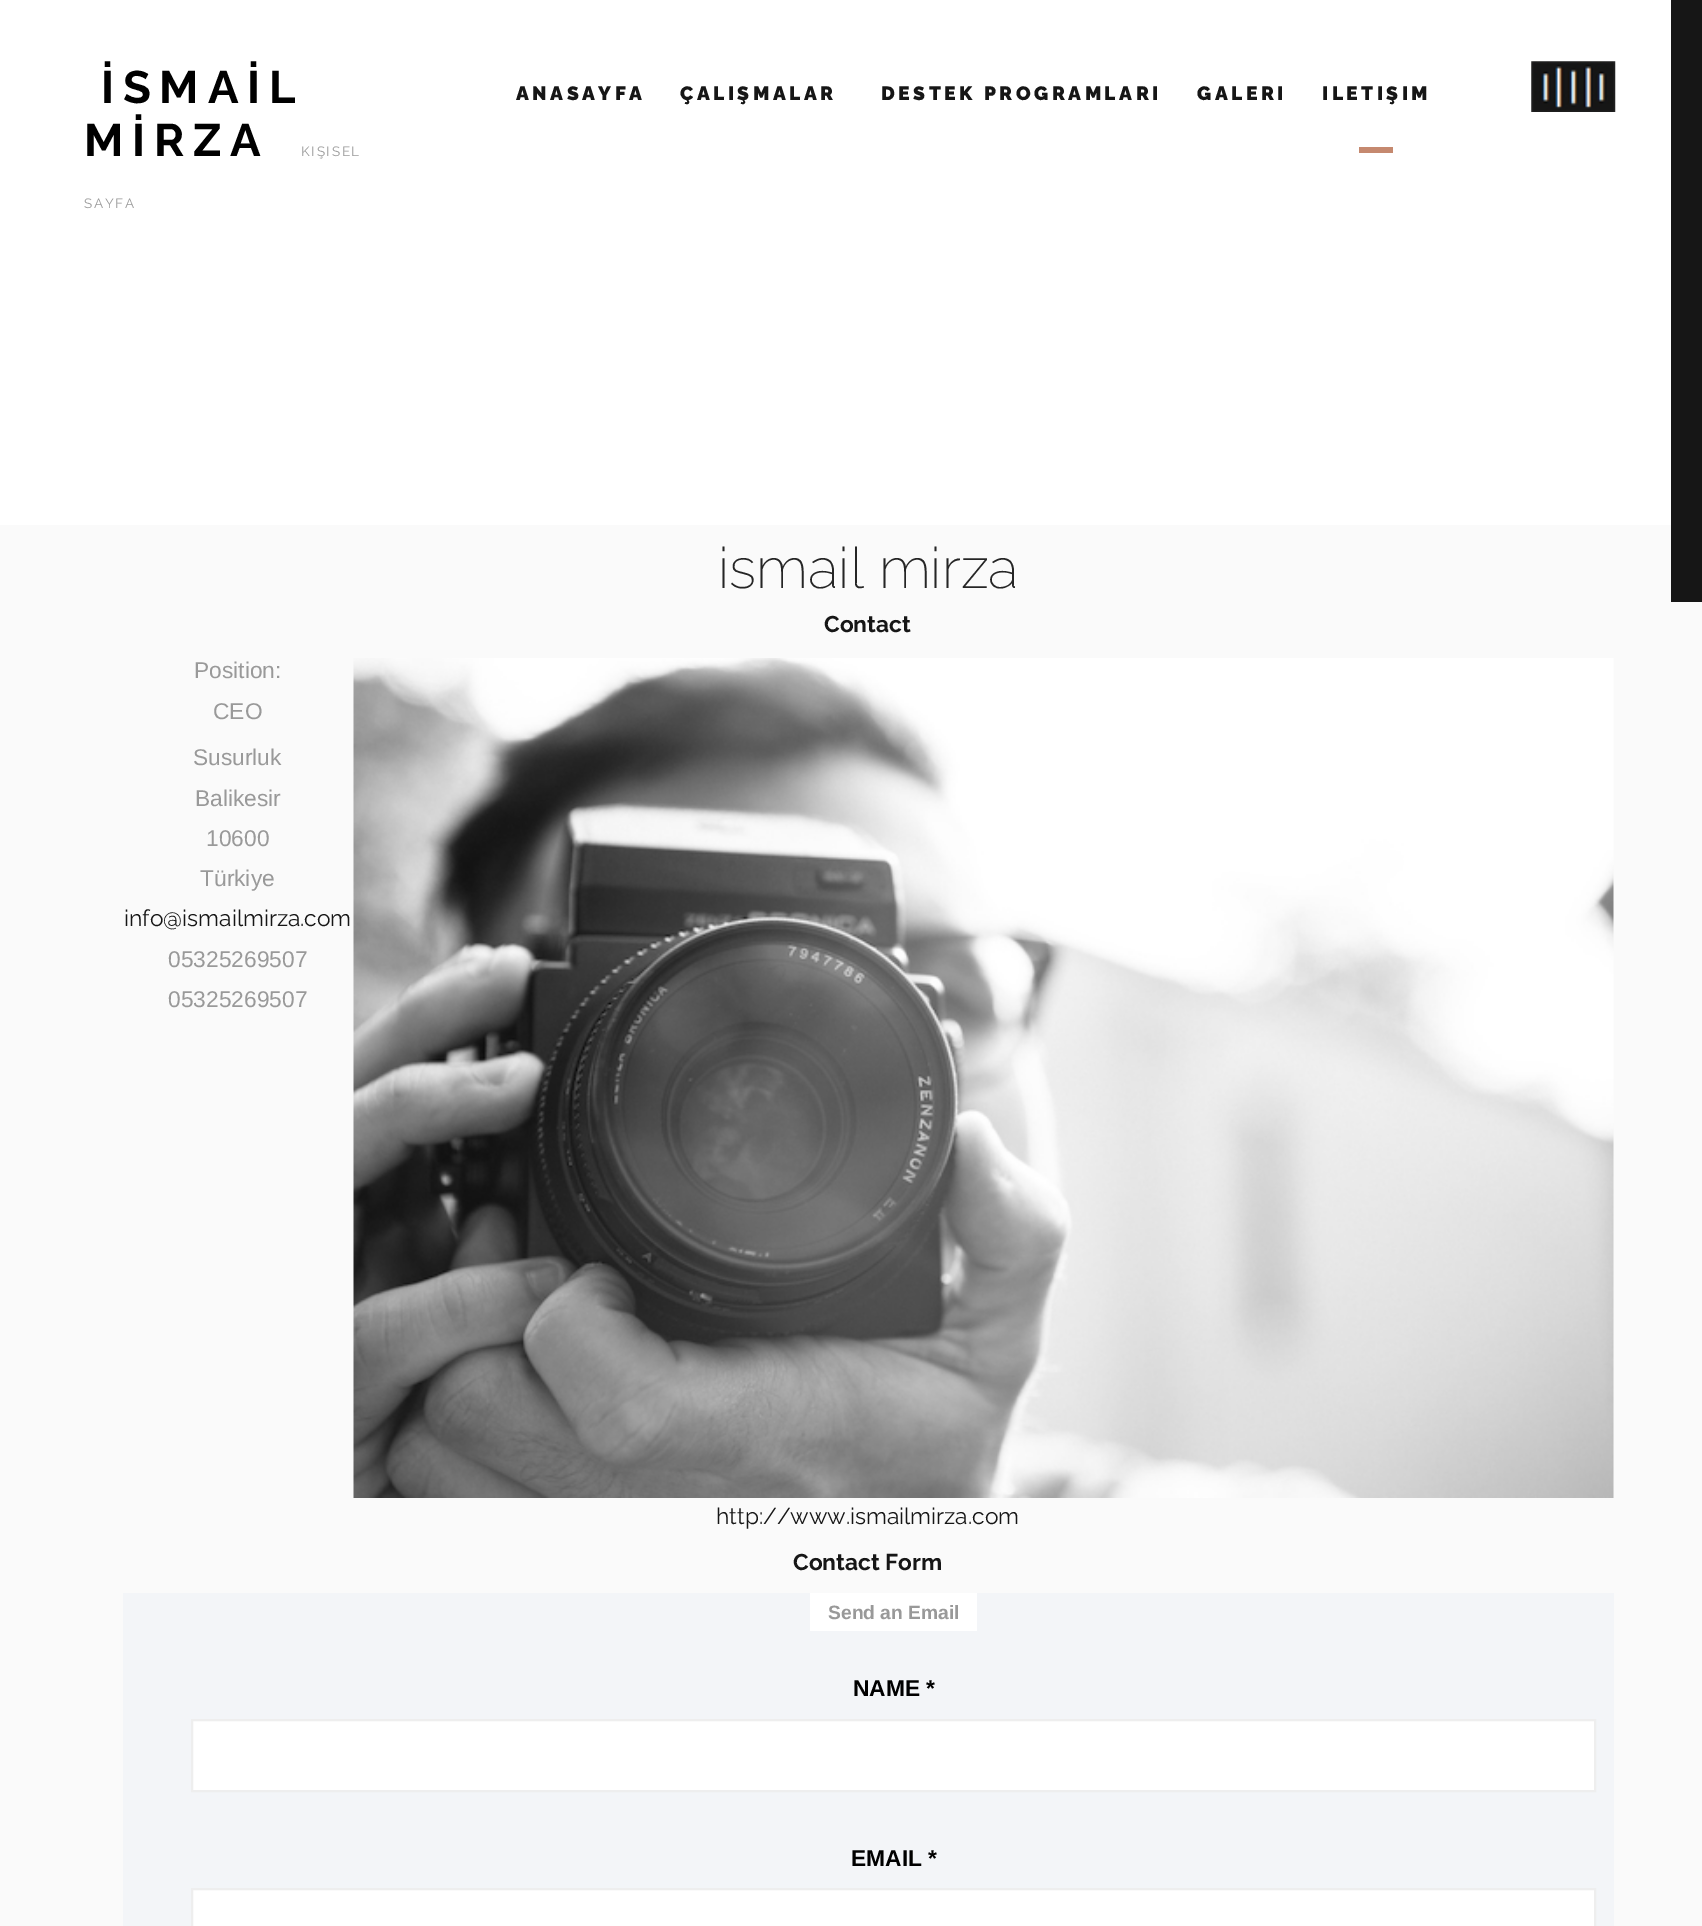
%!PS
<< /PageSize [1702 1926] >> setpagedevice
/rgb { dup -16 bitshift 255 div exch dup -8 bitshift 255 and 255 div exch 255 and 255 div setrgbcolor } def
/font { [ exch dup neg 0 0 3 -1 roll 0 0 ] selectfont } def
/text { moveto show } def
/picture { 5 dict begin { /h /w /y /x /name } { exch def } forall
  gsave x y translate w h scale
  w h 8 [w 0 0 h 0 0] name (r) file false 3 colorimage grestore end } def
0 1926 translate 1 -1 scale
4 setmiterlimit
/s1 { /Raleway-ExtraLight 57 font 16#252525 rgb } def
/s2 { /Raleway-Bold 22.75 font 16#161616 rgb } def
/s3 { /LiberationSans-Regular 22.75 font 16#999999 rgb } def
/s4 { /Raleway-Regular 22.75 font 16#161616 rgb } def
/s5 { /LiberationSans-Bold 19.25 font 16#999999 rgb } def
/s6 { /LiberationSans-Bold 22.75 font 16#000000 rgb } def
16#FFFFFF rgb
0 0 1702 1926 rectfill
/Raleway-Bold 45.5 font
16#000000 rgb
101 103 moveto 8.75 0 (İSMAİL) ashow
84 156 moveto 8.75 0 (MİRZA) ashow
/Raleway-Regular 13.5 font
16#999999 rgb
301 156 moveto 1.75 0 (KIŞISEL) ashow
84 208 moveto 1.75 0 (SAYFA) ashow
/Raleway-Black 19.25 font
16#161616 rgb
516 100 moveto 3.5 0 (ANASAYFA) ashow
680 100 moveto 3.5 0 (ÇALIŞMALAR) ashow
881 100 moveto 3.5 0 (DESTEK PROGRAMLARI) ashow
1197 100 moveto 3.5 0 (GALERI) ashow
16#C5896F rgb
1359 147 34 6 rectfill
16#161616 rgb
1322 100 moveto 3.5 0 (ILETIŞIM) ashow
(pic1.raw) 1531 61 85 51 picture
16#FAFAFA rgb
0 525 1702 1401 rectfill
16#161616 rgb
1671 0 31 602 rectfill
s1
(ismail mirza) 718 588 text
s2
(Contact) 824 632 text
s3
(Position:) 194 678 text
(CEO) 213 719 text
(pic2.raw) 353 658 1261 840 picture
(Susurluk) 193 765 text
(Balikesir) 195 806 text
(10600) 206 846 text
(Türkiye) 200 886 text
s4
(info@ismailmirza.com) 124 926 text
s3
(05325269507) 168 967 text
(05325269507) 168 1007 text
s4
(http://www.ismailmirza.com) 716 1524 text
s2
(Contact Form) 793 1570 text
16#F3F5F8 rgb
123 1593 1491 333 rectfill
16#FFFFFF rgb
810 1593 167 38 rectfill
s5
(Send an Email) 828 1619 text
s6
(NAME *) 853 1696 text
16#FFFFFF rgb
192 1720 moveto 1595 1720 lineto 1595 1791 lineto 192 1791 lineto closepath gsave fill grestore
16#EEEEEE rgb
2 setlinewidth
stroke
s6
(EMAIL *) 851 1866 text
16#FFFFFF rgb
192 1889 moveto 1595 1889 lineto 1595 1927 lineto 192 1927 lineto closepath gsave fill grestore
16#EEEEEE rgb
stroke
showpage
